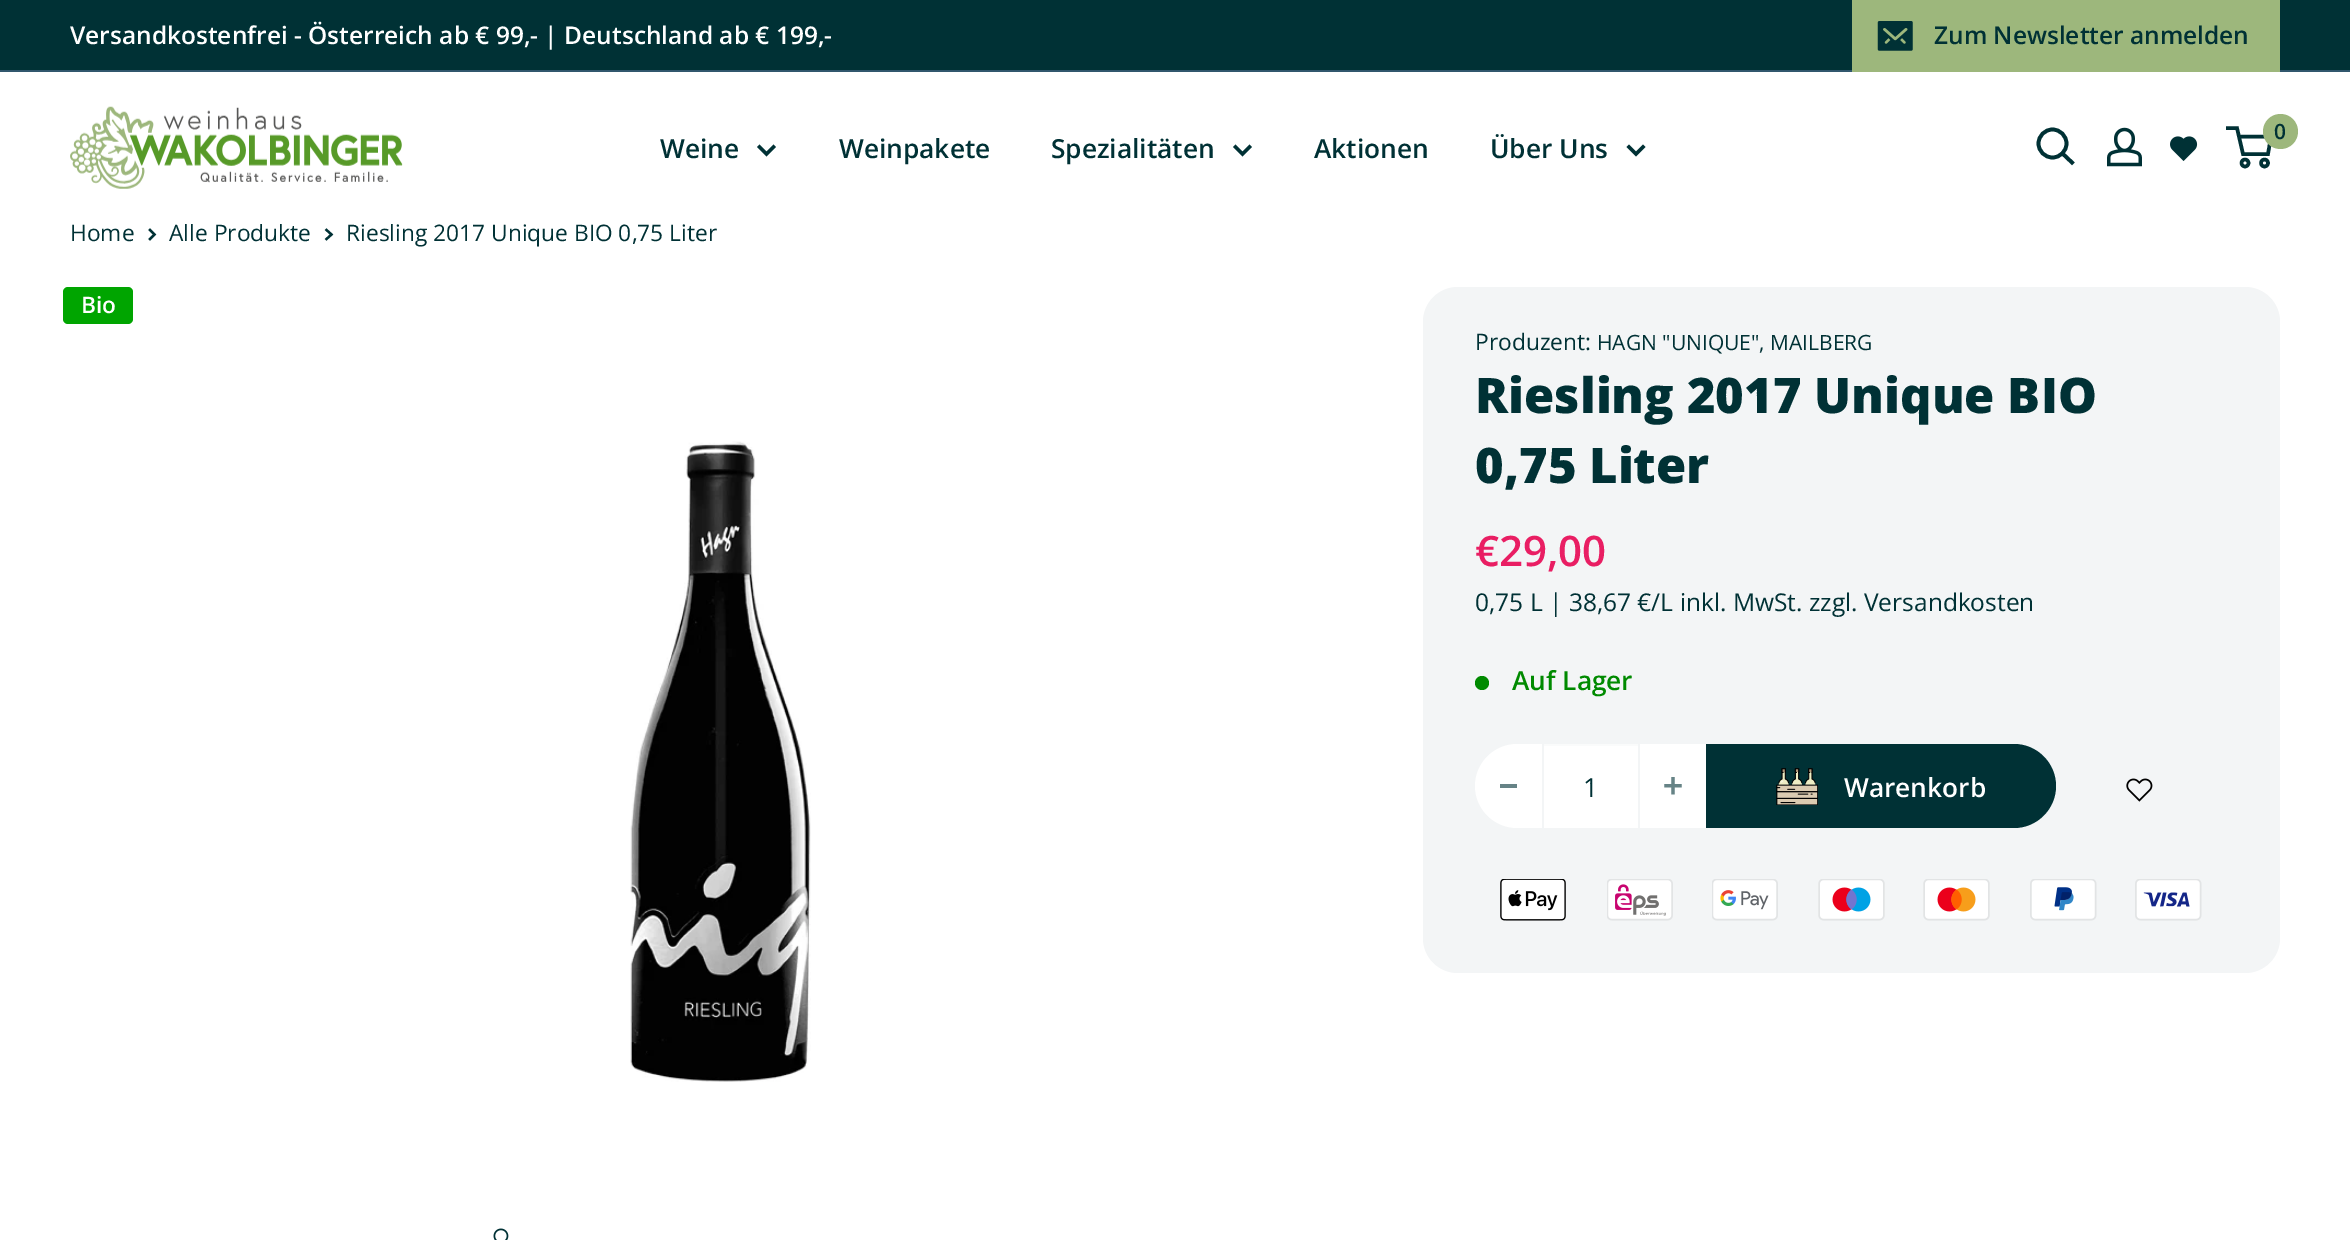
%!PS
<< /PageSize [2350 1240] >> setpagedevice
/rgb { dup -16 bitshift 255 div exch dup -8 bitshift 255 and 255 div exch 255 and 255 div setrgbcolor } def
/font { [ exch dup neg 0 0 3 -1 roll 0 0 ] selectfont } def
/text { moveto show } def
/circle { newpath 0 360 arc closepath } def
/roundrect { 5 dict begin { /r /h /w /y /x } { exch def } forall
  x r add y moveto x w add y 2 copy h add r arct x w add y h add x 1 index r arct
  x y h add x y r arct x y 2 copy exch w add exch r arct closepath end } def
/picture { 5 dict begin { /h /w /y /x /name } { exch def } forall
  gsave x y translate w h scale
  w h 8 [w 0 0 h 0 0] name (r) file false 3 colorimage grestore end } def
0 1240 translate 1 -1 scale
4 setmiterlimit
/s1 { /OpenSans-SemiBold 24.5 font 16#FFFFFF rgb } def
/s2 { /OpenSans-SemiBold 24.5 font 16#003135 rgb } def
/s3 { /OpenSans-Regular 22.75 font 16#003135 rgb } def
/s4 { /OpenSans-SemiBold 21 font 16#003135 rgb } def
/s5 { /OpenSans-SemiBold 26.25 font 16#003135 rgb } def
/s6 { /OpenSans-SemiBold 22.75 font 16#FFFFFF rgb } def
/s7 { /OpenSans-Regular 21 font 16#003135 rgb } def
/s8 { /OpenSans-ExtraBold 49 font 16#003135 rgb } def
/s9 { /OpenSans-SemiBold 42 font 16#E91E63 rgb } def
/s10 { /OpenSans-Regular 24.5 font 16#003135 rgb } def
/s11 { /OpenSans-SemiBold 26.25 font 16#008A00 rgb } def
/s12 { /OpenSans-Regular 26.25 font 16#003135 rgb } def
/s13 { /OpenSans-SemiBold 26.25 font 16#FFFFFF rgb } def
16#FFFFFF rgb
0 0 2350 1240 rectfill
16#003135 rgb
0 0 2350 70 rectfill
16#31576D rgb
0 70 2350 2 rectfill
s1
(Versandkostenfrei - Österreich ab € 99,- | Deutschland ab € 199,-) 70 44 text
16#9DB77C rgb
1852 0 428 72 rectfill
(pic1.raw) 1877 21 36 30 picture
s2
(Zum Newsletter anmelden) 1934 44 text
s3
(Alle Produkte) 169 241 text
(Riesling 2017 Unique BIO 0,75 Liter) 346 241 text
16#FFFFFF rgb
185 223 209 1 rectfill
(pic2.raw) 70 106 333 83 picture
16#003135 rgb
3.7 setlinewidth
2 setlinecap
2072 162.5 moveto 2062.5 153.5 lineto stroke
0 setlinecap
2052.5 143.5 14 circle stroke
(pic3.raw) 2107 127 35 40 picture
(pic4.raw) 2170 136 28 25 picture
3.5 setlinewidth
2245 163 3.5 circle stroke
2264.5 163 3.5 circle stroke
2239 136.5 moveto 2271 136.5 lineto 2268 154 lineto 2243 154 lineto 2237 128 lineto 2226 128 lineto stroke
16#9DB77C rgb
2280.5 131.5 17.5 circle fill
s4
(0) 2274 139 text
s5
(Weine) 660 158 text
2 setlinecap
773.5 147 moveto 766.5 154 lineto 759.5 147 lineto stroke
(Weinpakete) 839 158 text
(Spezialitäten) 1051 158 text
1249.5 147 moveto 1242.5 154 lineto 1235.5 147 lineto stroke
(Aktionen) 1314 158 text
(Über Uns) 1490 158 text
1643 147 moveto 1636 154 lineto 1629 147 lineto stroke
s3
(Home) 70 241 text
2.3 setlinewidth
150 230 moveto 154.5 234.5 lineto 150 239 lineto stroke
326.5 230 moveto 331.5 234.5 lineto 326.5 239 lineto stroke
16#00A500 rgb
63 287 70 37 5 roundrect fill
s6
(Bio) 81 313 text
(pic5.raw) 630 441 181 641 picture
(pic6.raw) 493 1228 16 12 picture
16#F3F5F6 rgb
1423 287 857 686 35 roundrect fill
s3
(Produzent:) 1475 350 text
s7
(HAGN "UNIQUE", MAILBERG) 1597 350 text
s8
(Riesling 2017 Unique BIO) 1475 413 text
(0,75 Liter) 1475 483 text
s9
(€29,00) 1475 566 text
s10
(0,75 L | 38,67 €/L inkl. MwSt. zzgl. Versandkosten) 1475 611 text
16#008A00 rgb
1482 683 7 circle fill
s11
(Auf Lager) 1512 690 text
16#FFFFFF rgb
1517 744 moveto 1706 744 lineto 1706 828 lineto 1517 828 lineto 1494 828 1475 809 1475 786 curveto 1475 763 1494 744 1517 744 curveto closepath fill
16#668386 rgb
1500 784 17 4 rectfill
16#FAFBFB rgb
1544 744 94 2 rectfill
16#F3F5F6 rgb
1638 744 2 84 rectfill
1542 744 2 84 rectfill
s12
(1) 1583 797 text
(pic7.raw) 1664 777 18 18 picture
1706 744 moveto 2014 744 lineto 2037 744 2056 763 2056 786 curveto 2056 809 2037 828 2014 828 curveto 1706 828 lineto closepath fill
(pic8.raw) 1776 768 42 37 picture
s13
(Warenkorb) 1844 797 text
(pic9.raw) 2126 778 27 24 picture
(pic10.raw) 1500 879 66 42 picture
(pic11.raw) 1607 879 66 42 picture
(pic12.raw) 1712 879 66 42 picture
(pic13.raw) 1818 879 67 42 picture
(pic14.raw) 1923 879 67 42 picture
(pic15.raw) 2030 879 67 42 picture
(pic16.raw) 2135 879 67 42 picture
showpage
